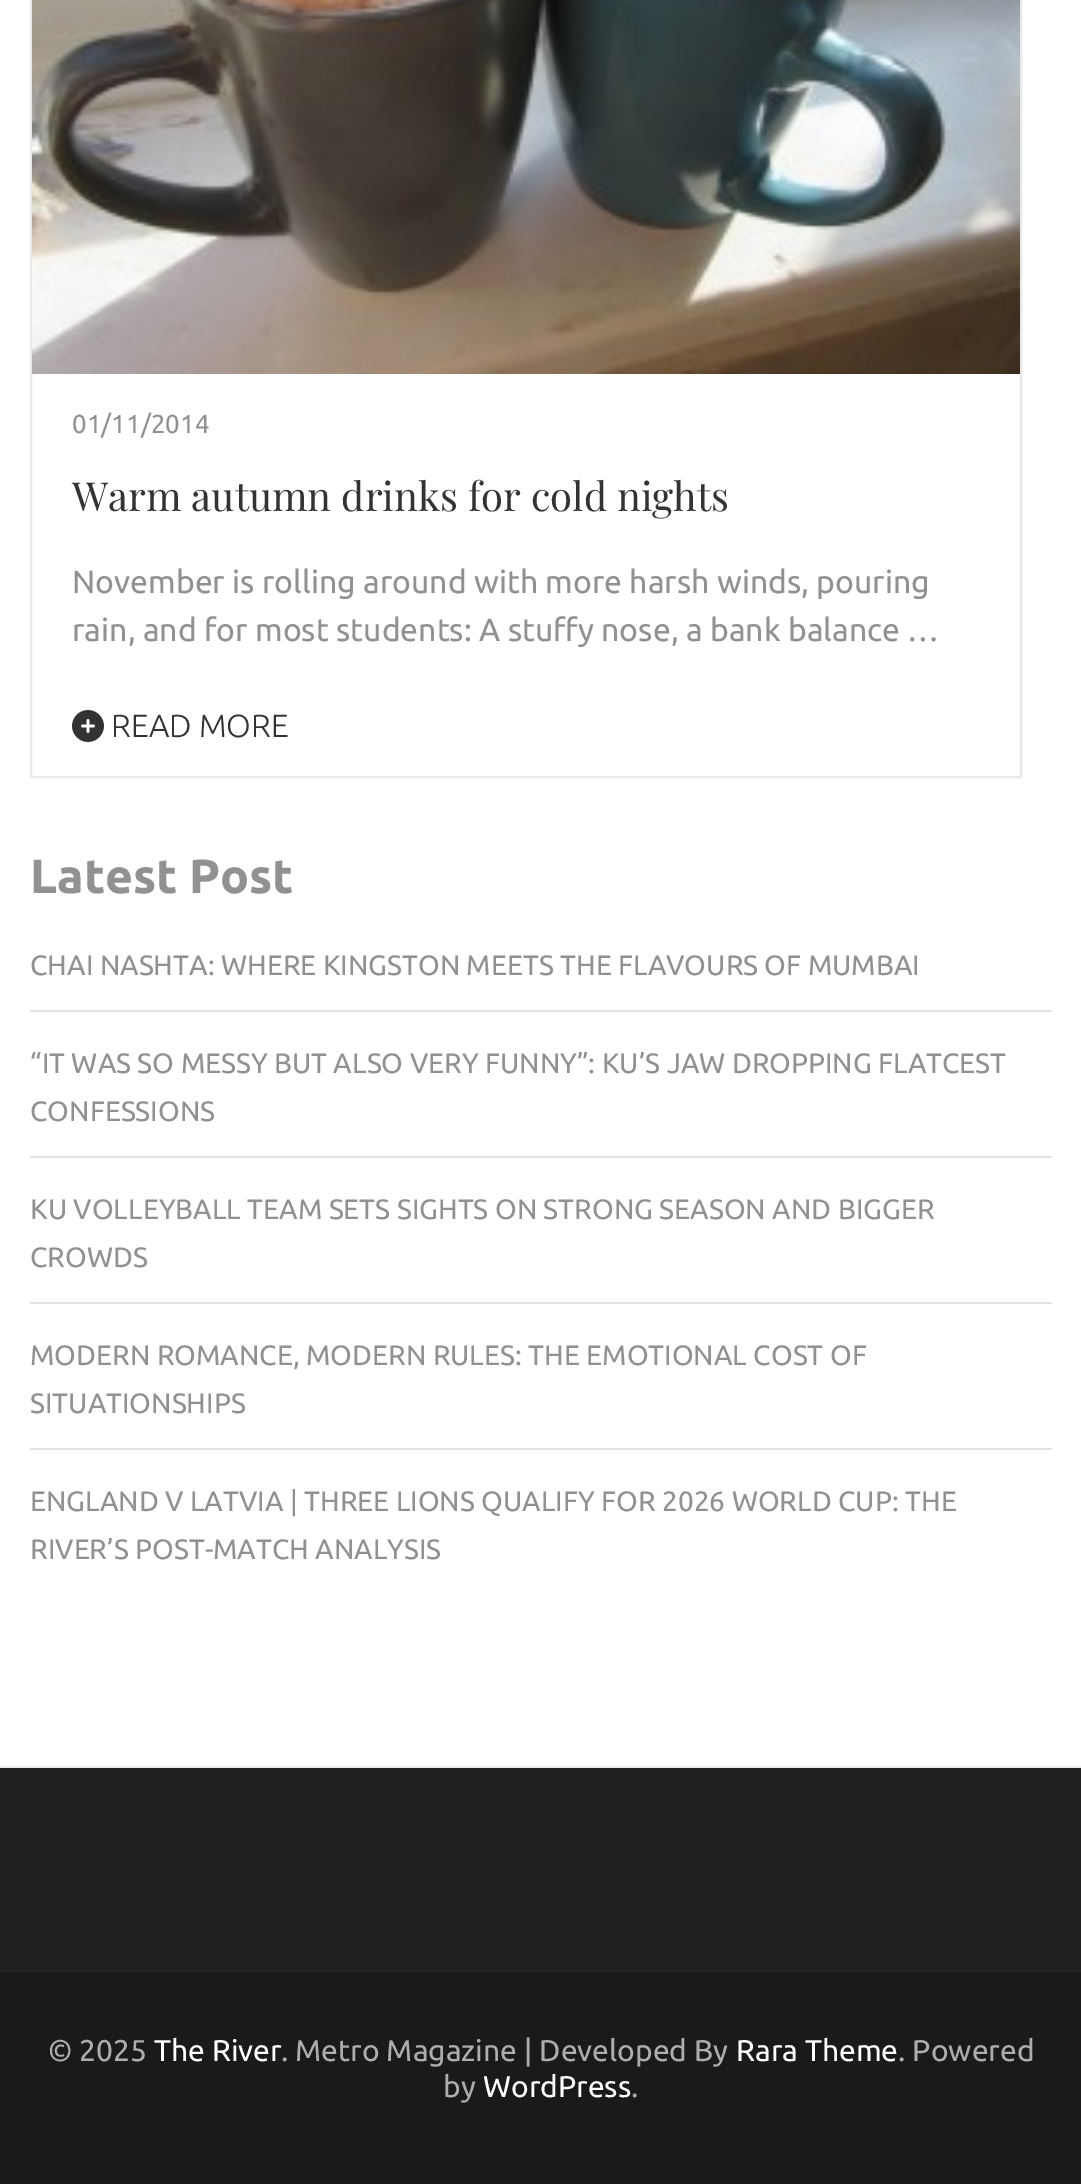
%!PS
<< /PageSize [1081 2184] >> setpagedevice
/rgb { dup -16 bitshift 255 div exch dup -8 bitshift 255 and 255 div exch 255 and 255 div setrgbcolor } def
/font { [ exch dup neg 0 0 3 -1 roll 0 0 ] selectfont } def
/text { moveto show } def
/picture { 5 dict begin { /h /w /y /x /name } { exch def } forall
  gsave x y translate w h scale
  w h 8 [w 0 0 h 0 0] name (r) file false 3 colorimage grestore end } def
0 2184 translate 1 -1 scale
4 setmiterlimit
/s1 { /Ubuntu-Regular 26 font 16#919191 rgb } def
/s2 { /PlayfairDisplay-Regular 40 font 16#333333 rgb } def
/s3 { /Ubuntu-Regular 32 font 16#919191 rgb } def
/s4 { /Ubuntu-Light 32 font 16#333333 rgb } def
/s5 { /Ubuntu-Bold 48 font 16#919191 rgb } def
/s6 { /Ubuntu-Regular 28 font 16#919191 rgb } def
/s7 { /Ubuntu-Regular 30 font 16#ADADAD rgb } def
/s8 { /Ubuntu-Regular 30 font 16#FFFFFF rgb } def
16#FFFFFF rgb
0 0 1081 2184 rectfill
16#EBEBEB rgb
0 1766 1081 2 rectfill
16#E8E8E8 rgb
2 setlinewidth
31 -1 990 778 rectstroke
(pic1.raw) 32 0 988 374 picture
s1
(01/11/2014) 72 433 text
s2
(Warm autumn drinks for cold nights) 72 511 text
s3
(November is rolling around with more harsh winds, pouring) 72 593 text
(rain, and for most students: A stuffy nose, a bank balance …) 72 641 text
(pic2.raw) 72 710 32 32 picture
s4
(READ MORE) 111 737 text
s5
(Latest Post) 30 893 text
16#E3E3E3 rgb
30 1010 1022 2 rectfill
s6
(CHAI NASHTA: WHERE KINGSTON MEETS THE FLAVOURS OF MUMBAI) 30 975 text
16#E3E3E3 rgb
30 1156 1022 2 rectfill
s6
(“IT WAS SO MESSY BUT ALSO VERY FUNNY”: KU’S JAW DROPPING FLATCEST) 30 1073 text
(CONFESSIONS) 30 1121 text
16#E3E3E3 rgb
30 1302 1022 2 rectfill
s6
(KU VOLLEYBALL TEAM SETS SIGHTS ON STRONG SEASON AND BIGGER) 30 1219 text
(CROWDS) 30 1267 text
16#E3E3E3 rgb
30 1448 1022 2 rectfill
s6
(MODERN ROMANCE, MODERN RULES: THE EMOTIONAL COST OF) 30 1365 text
(SITUATIONSHIPS) 30 1413 text
(ENGLAND V LATVIA | THREE LIONS QUALIFY FOR 2026 WORLD CUP: THE) 30 1511 text
(RIVER’S POST-MATCH ANALYSIS) 30 1559 text
16#202020 rgb
0 1768 1081 202 rectfill
16#1A1A1A rgb
0 1972 1081 212 rectfill
16#252525 rgb
0 1970 1081 2 rectfill
s7
(© 2025) 48 2061 text
s8
(The River) 154 2061 text
s7
(. Metro Magazine | Developed By) 281 2061 text
s8
(Rara Theme) 736 2061 text
s7
(. Powered) 898 2061 text
(by) 443 2097 text
s8
(WordPress) 483 2097 text
s7
(.) 631 2097 text
showpage
